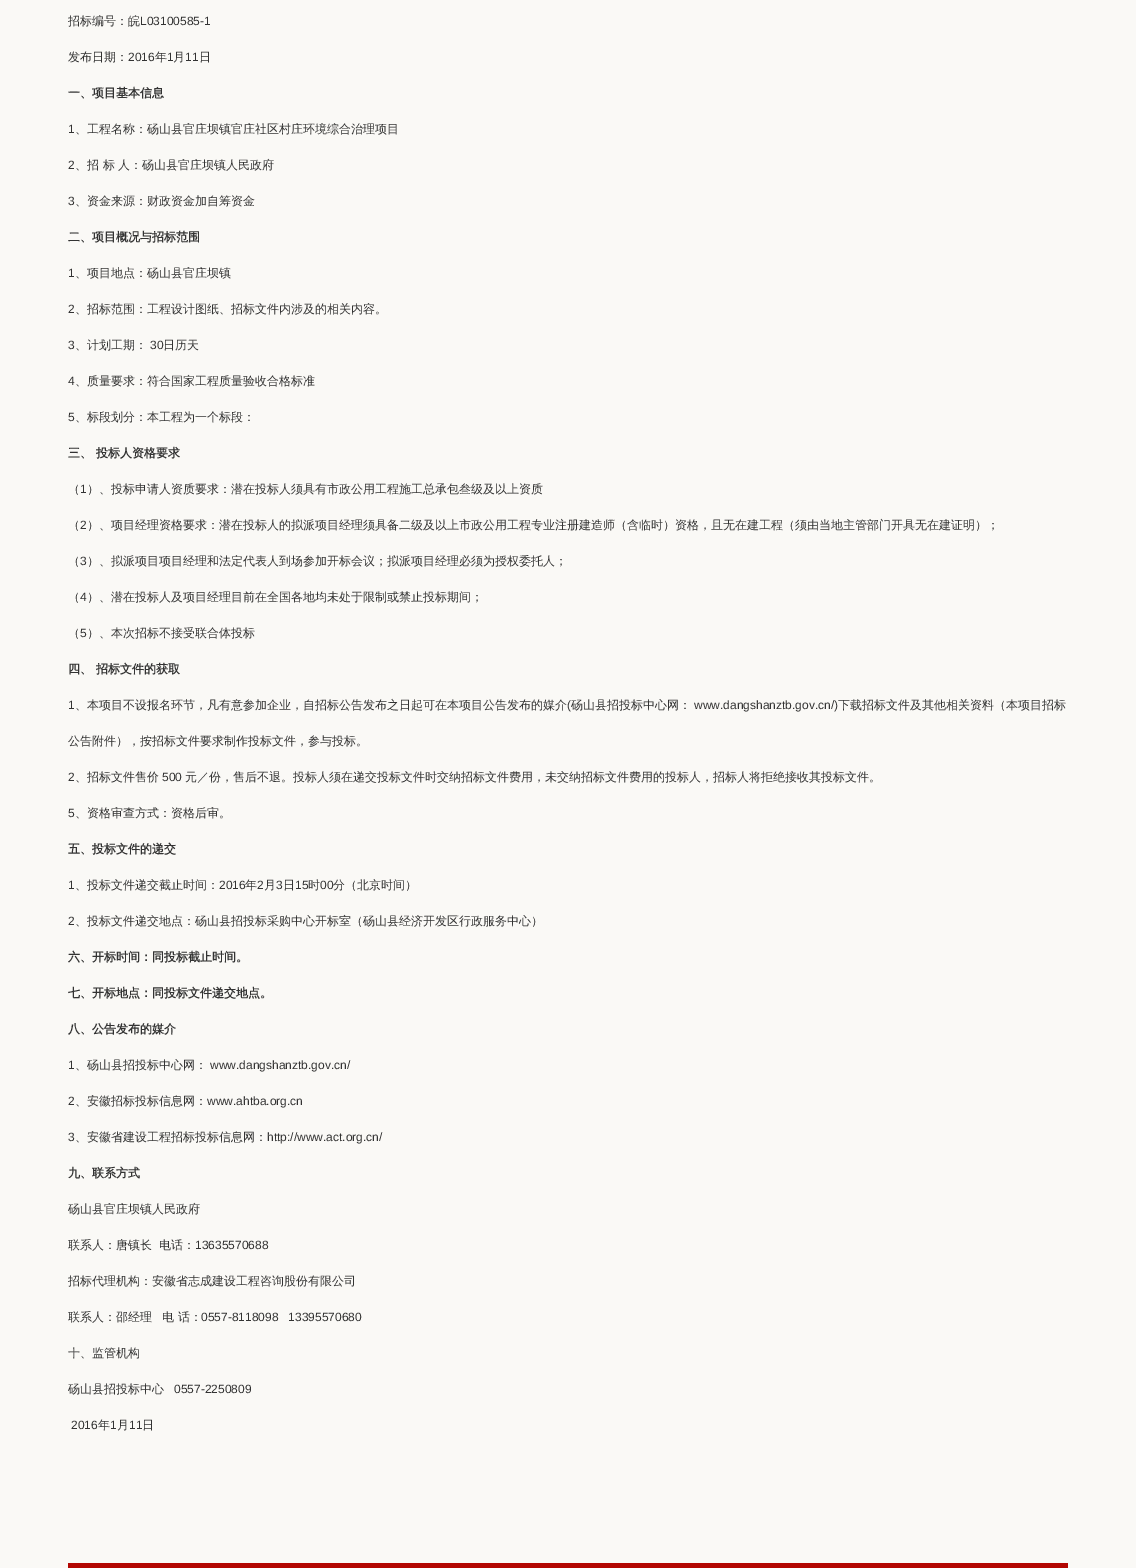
%!PS
<< /PageSize [1136 1568] >> setpagedevice
/rgb { dup -16 bitshift 255 div exch dup -8 bitshift 255 and 255 div exch 255 and 255 div setrgbcolor } def
/font { [ exch dup neg 0 0 3 -1 roll 0 0 ] selectfont } def
/text { moveto show } def
0 1568 translate 1 -1 scale
4 setmiterlimit
/s1 { /WenQuanYiZenHei-Medium 12 font 16#333333 rgb } def
/s2 { /LiberationSans-Regular 12 font 16#333333 rgb } def
/s3 { /WenQuanYiZenHei-Bold 12 font 16#333333 rgb } def
16#FAF9F6 rgb
0 0 1136 1568 rectfill
s1
(招标编号：皖) 68 25 text
s2
(L03100585-1) 140 25 text
s1
(发布日期：) 68 61 text
s2
(2016) 128 61 text
s1
(年) 155 61 text
s2
(1) 167 61 text
s1
(月) 173 61 text
s2
(11) 185 61 text
s1
(日) 199 61 text
s3
(一、项目基本信息) 68 97 text
s2
(1) 68 133 text
s1
(、工程名称：砀山县官庄坝镇官庄社区村庄环境综合治理项目) 75 133 text
s2
(2) 68 169 text
s1
(、招 标 人：砀山县官庄坝镇人民政府) 75 169 text
s2
(3) 68 205 text
s1
(、资金来源：财政资金加自筹资金) 75 205 text
s3
(二、项目概况与招标范围) 68 241 text
s2
(1) 68 277 text
s1
(、项目地点：砀山县官庄坝镇) 75 277 text
s2
(2) 68 313 text
s1
(、招标范围：工程设计图纸、招标文件内涉及的相关内容。) 75 313 text
s2
(3) 68 349 text
s1
(、计划工期：) 75 349 text
s2
(30) 150 349 text
s1
(日历天) 163 349 text
s2
(4) 68 385 text
s1
(、质量要求：符合国家工程质量验收合格标准) 75 385 text
s2
(5) 68 421 text
s1
(、标段划分：本工程为一个标段：) 75 421 text
s3
(三、 投标人资格要求) 68 457 text
s1
(（) 68 493 text
s2
(1) 80 493 text
s1
(）、投标申请人资质要求：潜在投标人须具有市政公用工程施工总承包叁级及以上资质) 87 493 text
(（) 68 529 text
s2
(2) 80 529 text
s1
(）、项目经理资格要求：潜在投标人的拟派项目经理须具备二级及以上市政公用工程专业注册建造师（含临时）资格，且无在建工程（须由当地主管部门开具无在建证明）；) 87 529 text
(（) 68 565 text
s2
(3) 80 565 text
s1
(）、拟派项目项目经理和法定代表人到场参加开标会议；拟派项目经理必须为授权委托人；) 87 565 text
(（) 68 601 text
s2
(4) 80 601 text
s1
(）、潜在投标人及项目经理目前在全国各地均未处于限制或禁止投标期间；) 87 601 text
(（) 68 637 text
s2
(5) 80 637 text
s1
(）、本次招标不接受联合体投标) 87 637 text
s3
(四、 招标文件的获取) 68 673 text
s2
(1) 68 709 text
s1
(、本项目不设报名环节，凡有意参加企业，自招标公告发布之日起可在本项目公告发布的媒介) 75 709 text
s2
(\() 567 709 text
s1
(砀山县招投标中心网：) 571 709 text
s2
(www.dangshanztb.gov.cn/\)) 694 709 text
s1
(下载招标文件及其他相关资料（本项目招标) 838 709 text
(公告附件），按招标文件要求制作投标文件，参与投标。) 68 745 text
s2
(2) 68 781 text
s1
(、招标文件售价) 75 781 text
s2
(500) 162 781 text
s1
(元／份，售后不退。投标人须在递交投标文件时交纳招标文件费用，未交纳招标文件费用的投标人，招标人将拒绝接收其投标文件。) 185 781 text
s2
(5) 68 817 text
s1
(、资格审查方式：资格后审。) 75 817 text
s3
(五、投标文件的递交) 68 853 text
s2
(1) 68 889 text
s1
(、投标文件递交截止时间：) 75 889 text
s2
(2016) 219 889 text
s1
(年) 245 889 text
s2
(2) 257 889 text
s1
(月) 264 889 text
s2
(3) 276 889 text
s1
(日) 283 889 text
s2
(15) 295 889 text
s1
(时) 308 889 text
s2
(00) 320 889 text
s1
(分（北京时间）) 333 889 text
s2
(2) 68 925 text
s1
(、投标文件递交地点：砀山县招投标采购中心开标室（砀山县经济开发区行政服务中心）) 75 925 text
s3
(六、开标时间：同投标截止时间。) 68 961 text
(七、开标地点：同投标文件递交地点。) 68 997 text
(八、公告发布的媒介) 68 1033 text
s2
(1) 68 1069 text
s1
(、砀山县招投标中心网：) 75 1069 text
s2
(www.dangshanztb.gov.cn/) 210 1069 text
(2) 68 1105 text
s1
(、安徽招标投标信息网：) 75 1105 text
s2
(www.ahtba.org.cn) 207 1105 text
(3) 68 1141 text
s1
(、安徽省建设工程招标投标信息网：) 75 1141 text
s2
(http://www.act.org.cn/) 267 1141 text
s3
(九、联系方式) 68 1177 text
s1
(砀山县官庄坝镇人民政府) 68 1213 text
(联系人：唐镇长) 68 1249 text
(电话：) 159 1249 text
s2
(13635570688) 195 1249 text
s1
(招标代理机构：安徽省志成建设工程咨询股份有限公司) 68 1285 text
(联系人：邵经理) 68 1321 text
(电 话：) 162 1321 text
s2
(0557-8118098   13395570680) 201 1321 text
s1
(十、监管机构) 68 1357 text
(砀山县招投标中心) 68 1393 text
s2
(0557-2250809) 174 1393 text
(2016) 71 1429 text
s1
(年) 98 1429 text
s2
(1) 110 1429 text
s1
(月) 117 1429 text
s2
(11) 129 1429 text
s1
(日) 142 1429 text
16#B30702 rgb
68 1563 1000 5 rectfill
showpage
